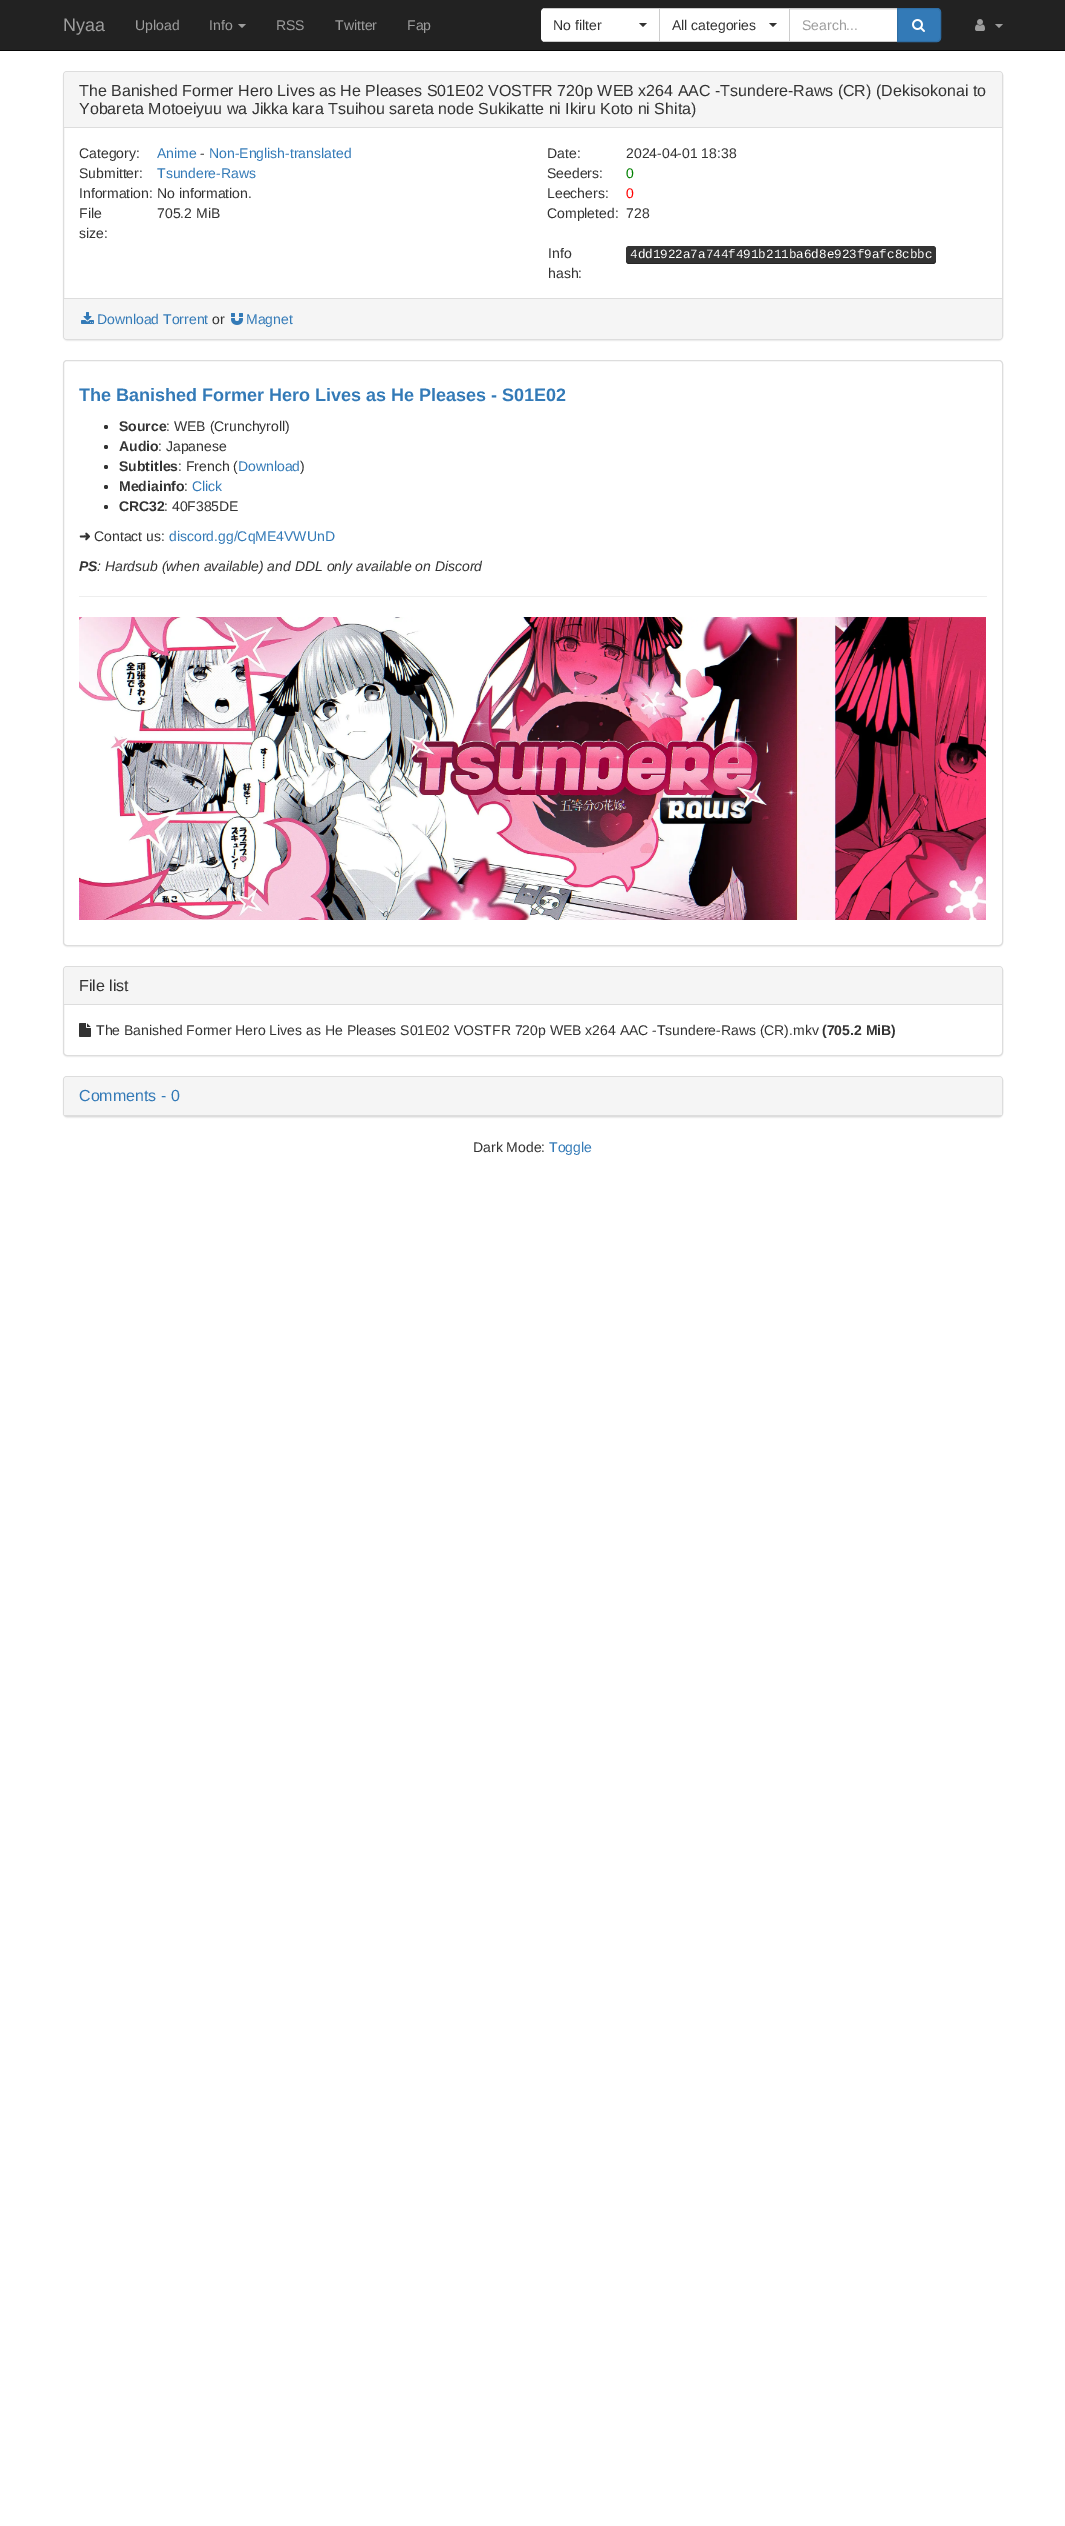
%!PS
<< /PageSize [1065 2526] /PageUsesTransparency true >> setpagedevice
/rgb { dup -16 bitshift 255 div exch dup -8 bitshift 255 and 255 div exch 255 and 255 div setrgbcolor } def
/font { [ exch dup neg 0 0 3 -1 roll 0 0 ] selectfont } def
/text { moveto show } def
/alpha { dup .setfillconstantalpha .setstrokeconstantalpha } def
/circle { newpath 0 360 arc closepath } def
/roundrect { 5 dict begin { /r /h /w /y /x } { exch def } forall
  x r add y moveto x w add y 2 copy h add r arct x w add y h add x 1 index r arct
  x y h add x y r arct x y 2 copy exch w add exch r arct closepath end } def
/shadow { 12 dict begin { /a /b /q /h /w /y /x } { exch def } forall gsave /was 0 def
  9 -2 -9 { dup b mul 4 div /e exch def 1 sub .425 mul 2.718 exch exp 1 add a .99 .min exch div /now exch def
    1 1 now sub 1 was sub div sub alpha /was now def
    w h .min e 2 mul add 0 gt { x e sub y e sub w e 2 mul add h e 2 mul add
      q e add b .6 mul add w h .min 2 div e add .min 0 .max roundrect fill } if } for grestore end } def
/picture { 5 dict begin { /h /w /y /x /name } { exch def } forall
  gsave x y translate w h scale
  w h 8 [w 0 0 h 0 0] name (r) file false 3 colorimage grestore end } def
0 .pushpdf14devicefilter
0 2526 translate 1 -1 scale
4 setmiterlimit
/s1 { /LiberationSans-Regular 18 font 16#9D9D9D rgb } def
/s2 { /LiberationSans-Regular 14 font 16#9D9D9D rgb } def
/s3 { /LiberationSans-Regular 14 font 16#333333 rgb } def
/s4 { /LiberationSans-Regular 16 font 16#333333 rgb } def
/s5 { /LiberationSans-Regular 14 font 16#337AB7 rgb } def
/s6 { /LiberationSans-Regular 14 font 16#008000 rgb } def
/s7 { /LiberationSans-Regular 14 font 16#FF0000 rgb } def
/s8 { /LiberationMono-Regular 12.6 font 16#FFFFFF rgb } def
/s9 { /LiberationSans-Bold 18 font 16#337AB7 rgb } def
/s10 { /LiberationSans-Bold 14 font 16#333333 rgb } def
/s11 { /DejaVuSans-Bold 14 font 16#333333 rgb } def
/s12 { /LiberationSans-BoldItalic 14 font 16#333333 rgb } def
/s13 { /LiberationSans-Italic 14 font 16#333333 rgb } def
/s14 { /LiberationSans-Regular 16 font 16#337AB7 rgb } def
16#FFFFFF rgb
0 0 1065 2526 rectfill
16#222222 rgb
0 0 1065 50 rectfill
16#080808 rgb
0 50 1065 1 rectfill
s1
(Nyaa) 63 31 text
s2
(Upload) 135 30 text
(Info) 209 30 text
238 24 moveto 246 24 lineto 242 28 lineto closepath fill
(RSS) 276 30 text
(Twitter) 335 30 text
(Fap) 407 30 text
16#FFFFFF rgb
545 8 moveto 660 8 lineto 660 42 lineto 545 42 lineto 543 42 541 40 541 38 curveto 541 12 lineto 541 10 543 8 545 8 curveto closepath fill
16#CCCCCC rgb
543 8 355 1 rectfill
659 8 1 34 rectfill
543 41 117 1 rectfill
s3
(No filter) 553 30 text
639 23 moveto 647 23 lineto 643 27 lineto closepath fill
16#FFFFFF rgb
660 9 129 32 rectfill
16#CCCCCC rgb
789 8 1 34 rectfill
660 41 238 1 rectfill
s3
(All categories) 672 30 text
769 23 moveto 777 23 lineto 773 27 lineto closepath fill
16#FFFFFF rgb
790 10 107 31 rectfill
16#ECECEC rgb
790 9 107 1 rectfill
s2
(Search...) 802 30 text
16#337AB7 rgb
897.5 8.5 moveto 937 8.5 lineto 939 8.5 940.5 10 940.5 12 curveto 940.5 38 lineto 940.5 40 939 41.5 937 41.5 curveto 897.5 41.5 lineto closepath gsave fill grestore
16#2E6DA4 rgb
stroke
(pic1.raw) 912 19 13 13 picture
(pic2.raw) 975 19 10 12 picture
16#9D9D9D rgb
995 24 moveto 1003 24 lineto 999 28 lineto closepath fill
16#000000 rgb
63 72 940 269 4 0.5 0.05 shadow
16#FFFFFF rgb
63.5 71.5 939 268 3.5 roundrect gsave fill grestore
16#DDDDDD rgb
stroke
16#F5F5F5 rgb
67 72 moveto 999 72 lineto 1000.5 72 1002 73.5 1002 75 curveto 1002 128 lineto 64 128 lineto 64 75 lineto 64 73.5 65.5 72 67 72 curveto closepath fill
16#DDDDDD rgb
64 127 938 1 rectfill
s4
(The Banished Former Hero Lives as He Pleases S01E02 VOSTFR 720p WEB x264 AAC -Tsundere-Raws \(CR\) \(Dekisokonai to) 79 96 text
(Yobareta Motoeiyuu wa Jikka kara Tsuihou sareta node Sukikatte ni Ikiru Koto ni Shita\)) 79 114 text
s3
(Category:) 79 158 text
s5
(Anime) 157 158 text
s3
(-) 200 158 text
s5
(Non-English-translated) 209 158 text
s3
(Date:) 547 158 text
(2024-04-01 18:38) 626 158 text
(Submitter:) 79 178 text
s5
(Tsundere-Raws) 157 178 text
s3
(Seeders:) 547 178 text
s6
(0) 626 178 text
s3
(Information:) 79 198 text
(No information.) 157 198 text
(Leechers:) 547 198 text
s7
(0) 626 198 text
s3
(File) 79 218 text
(size:) 79 238 text
(705.2 MiB) 157 218 text
(Completed:) 547 218 text
(728) 626 218 text
(Info) 548 258 text
(hash:) 548 278 text
626 246 310 18 3 roundrect fill
s8
(4dd1922a7a744f491b211ba6d8e923f9afc8cbbc) 630 258 text
0.25 alpha
16#000000 rgb
626 260 moveto 627 263 lineto 628 264 lineto 933 264 lineto 935 264 936 262 936 260 curveto 936 262 935 263 933 263 curveto 629 263 lineto 627 263 626 262 626 260 curveto closepath fill
1 alpha
16#F5F5F5 rgb
64 298 moveto 1002 298 lineto 1002 336 lineto 1002 337.5 1000.5 339 999 339 curveto 67 339 lineto 65.5 339 64 337.5 64 336 curveto closepath fill
16#DDDDDD rgb
64 298 938 1 rectfill
(pic3.raw) 81 312 13 12 picture
s5
(Download Torrent) 97 324 text
s3
(or) 212 324 text
(pic4.raw) 231 313 12 12 picture
s5
(Magnet) 246 324 text
16#000000 rgb
63 361 940 586 4 0.5 0.05 shadow
16#FFFFFF rgb
63.5 360.5 939 585 3.5 roundrect gsave fill grestore
16#DDDDDD rgb
stroke
s9
(The Banished Former Hero Lives as He Pleases - S01E02) 79 401 text
16#333333 rgb
106 427 2 circle fill
s10
(Source) 119 431 text
s3
(: WEB \(Crunchyroll\)) 166 431 text
106 447 2 circle fill
s10
(Audio) 119 451 text
s3
(: Japanese) 158 451 text
106 467 2 circle fill
s10
(Subtitles) 119 471 text
s3
(: French \() 178 471 text
s5
(Download) 238 471 text
s3
(\)) 300 471 text
106 487 2 circle fill
s10
(Mediainfo) 119 491 text
s3
(:) 184 491 text
s5
(Click) 192 491 text
16#333333 rgb
106 507 2 circle fill
s10
(CRC32) 119 511 text
s3
(: 40F385DE) 164 511 text
s11
(➜) 79 541 text
s3
(Contact us:) 94 541 text
s5
(discord.gg/CqME4VWUnD) 169 541 text
s12
(PS) 79 571 text
s13
(: Hardsub \(when available\) and DDL only available on Discord) 97 571 text
16#EEEEEE rgb
79 596 908 1 rectfill
(pic5.raw) 79 617 907 303 picture
16#000000 rgb
63 967 940 90 4 0.5 0.05 shadow
16#FFFFFF rgb
63.5 966.5 939 89 3.5 roundrect gsave fill grestore
16#DDDDDD rgb
stroke
16#F5F5F5 rgb
67 967 moveto 999 967 lineto 1000.5 967 1002 968.5 1002 970 curveto 1002 1005 lineto 64 1005 lineto 64 970 lineto 64 968.5 65.5 967 67 967 curveto closepath fill
16#DDDDDD rgb
64 1004 938 1 rectfill
s4
(File list) 79 991 text
(pic6.raw) 79 1023 12 14 picture
s3
(The Banished Former Hero Lives as He Pleases S01E02 VOSTFR 720p WEB x264 AAC -Tsundere-Raws \(CR\).mkv) 96 1035 text
s10
(\(705.2 MiB\)) 822 1035 text
16#000000 rgb
63 1077 940 41 4 0.5 0.05 shadow
16#DDDDDD rgb
63.5 1076.5 939 40 3.5 roundrect stroke
16#F5F5F5 rgb
67 1077 moveto 999 1077 lineto 1000.5 1077 1002 1078.5 1002 1080 curveto 1002 1116 lineto 64 1116 lineto 64 1080 lineto 64 1078.5 65.5 1077 67 1077 curveto closepath fill
16#DDDDDD rgb
64 1115 938 1 rectfill
s14
(Comments - 0) 79 1101 text
s3
(Dark Mode:) 473 1152 text
s5
(Toggle) 549 1152 text
.poppdf14devicefilter showpage
